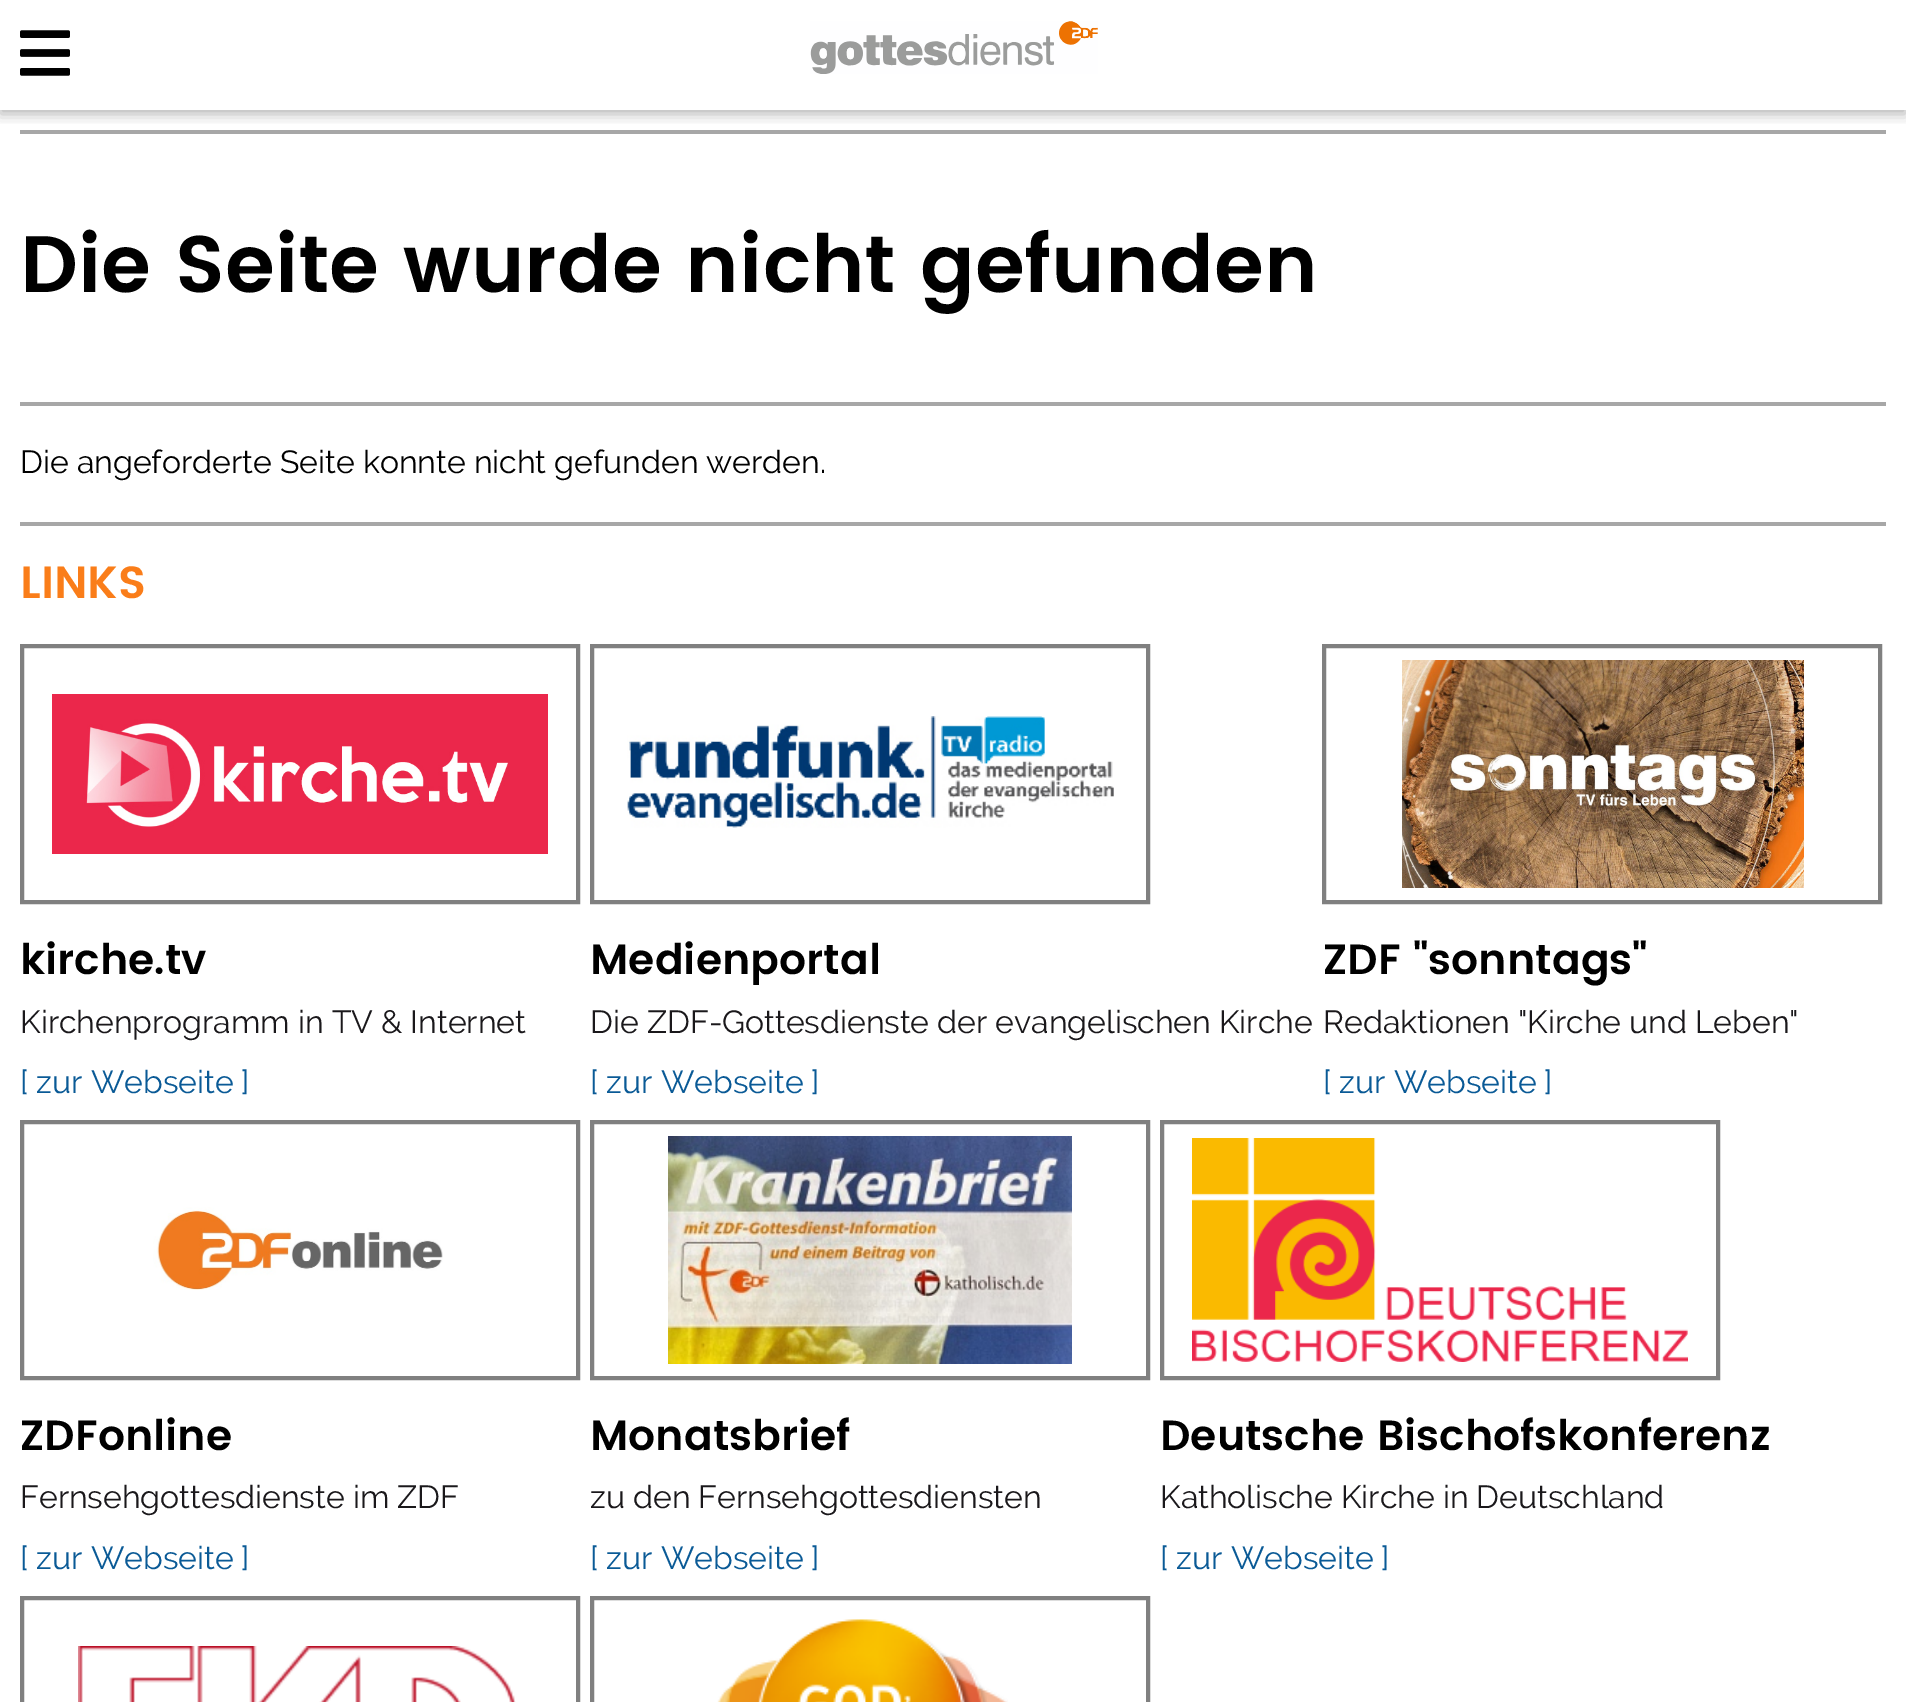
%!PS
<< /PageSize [1906 1702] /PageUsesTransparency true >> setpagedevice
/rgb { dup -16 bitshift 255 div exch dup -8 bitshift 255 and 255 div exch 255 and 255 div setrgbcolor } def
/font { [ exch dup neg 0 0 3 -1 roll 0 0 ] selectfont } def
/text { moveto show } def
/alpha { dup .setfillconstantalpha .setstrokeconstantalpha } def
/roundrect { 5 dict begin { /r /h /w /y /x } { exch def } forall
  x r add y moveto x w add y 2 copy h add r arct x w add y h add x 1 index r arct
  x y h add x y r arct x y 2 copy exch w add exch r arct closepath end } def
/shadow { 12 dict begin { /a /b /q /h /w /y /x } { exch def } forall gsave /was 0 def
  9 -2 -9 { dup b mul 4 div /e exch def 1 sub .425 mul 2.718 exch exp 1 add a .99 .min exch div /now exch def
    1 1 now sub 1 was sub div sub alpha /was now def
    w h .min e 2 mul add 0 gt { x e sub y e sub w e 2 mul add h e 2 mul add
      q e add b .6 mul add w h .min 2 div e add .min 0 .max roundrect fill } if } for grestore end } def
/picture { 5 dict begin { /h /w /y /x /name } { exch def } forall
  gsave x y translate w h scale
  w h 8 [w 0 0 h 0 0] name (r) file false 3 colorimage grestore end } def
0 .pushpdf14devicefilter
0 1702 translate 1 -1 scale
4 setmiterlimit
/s1 { /Poppins-SemiBold 80 font 16#000000 rgb } def
/s2 { /Raleway-Regular 32 font 16#000000 rgb } def
/s3 { /Poppins-SemiBold 45 font 16#FA7D19 rgb } def
/s4 { /Poppins-SemiBold 42.1 font 16#000000 rgb } def
/s5 { /Raleway-Regular 32 font 16#1A181B rgb } def
/s6 { /Raleway-Regular 32 font 16#0A5A96 rgb } def
16#FFFFFF rgb
0 0 1906 1702 rectfill
16#A7A7A7 rgb
20 130 1866 4 rectfill
gsave
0 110 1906 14 rectclip
16#000000 rgb
0 4 1906 110 0 7 0.3 shadow
grestore
(pic1.raw) 20 30 50 46 picture
(pic2.raw) 810 21 288 53 picture
s1
(Die Seite wurde nicht gefunden) 20 292 text
16#A7A7A7 rgb
20 402 1866 4 rectfill
s2
(Die angeforderte Seite konnte nicht gefunden werden.) 20 473 text
16#A7A7A7 rgb
20 522 1866 4 rectfill
s3
(LINKS) 20 598 text
16#808080 rgb
4 setlinewidth
22 646 556 256 rectstroke
(pic3.raw) 52 694 496 160 picture
s4
(kirche.tv) 20 974 text
s5
(Kirchenprogramm in TV & Internet) 20 1033 text
s6
([ zur Webseite ]) 20 1093 text
16#808080 rgb
592 646 556 256 rectstroke
(pic4.raw) 627 716 487 112 picture
s4
(Medienportal) 590 974 text
s5
(Die ZDF-Gottesdienste der evangelischen Kirche) 590 1033 text
s6
([ zur Webseite ]) 590 1093 text
16#808080 rgb
1324 646 556 256 rectstroke
(pic5.raw) 1402 660 402 228 picture
s4
(ZDF "sonntags") 1323 974 text
s5
(Redaktionen "Kirche und Leben") 1323 1033 text
s6
([ zur Webseite ]) 1323 1093 text
16#808080 rgb
22 1122 556 256 rectstroke
(pic6.raw) 153 1207 290 83 picture
s4
(ZDFonline) 20 1450 text
s5
(Fernsehgottesdienste im ZDF) 20 1508 text
s6
([ zur Webseite ]) 20 1569 text
16#808080 rgb
592 1122 556 256 rectstroke
(pic7.raw) 668 1136 404 228 picture
s4
(Monatsbrief) 590 1450 text
s5
(zu den Fernsehgottesdiensten) 590 1508 text
s6
([ zur Webseite ]) 590 1569 text
16#808080 rgb
1162 1122 556 256 rectstroke
(pic8.raw) 1192 1138 496 224 picture
s4
(Deutsche Bischofskonferenz) 1160 1450 text
s5
(Katholische Kirche in Deutschland) 1160 1508 text
s6
([ zur Webseite ]) 1160 1569 text
16#808080 rgb
22 1598 556 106 rectstroke
(pic9.raw) 78 1646 438 56 picture
592 1598 556 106 rectstroke
(pic10.raw) 717 1619 291 83 picture
.poppdf14devicefilter showpage
